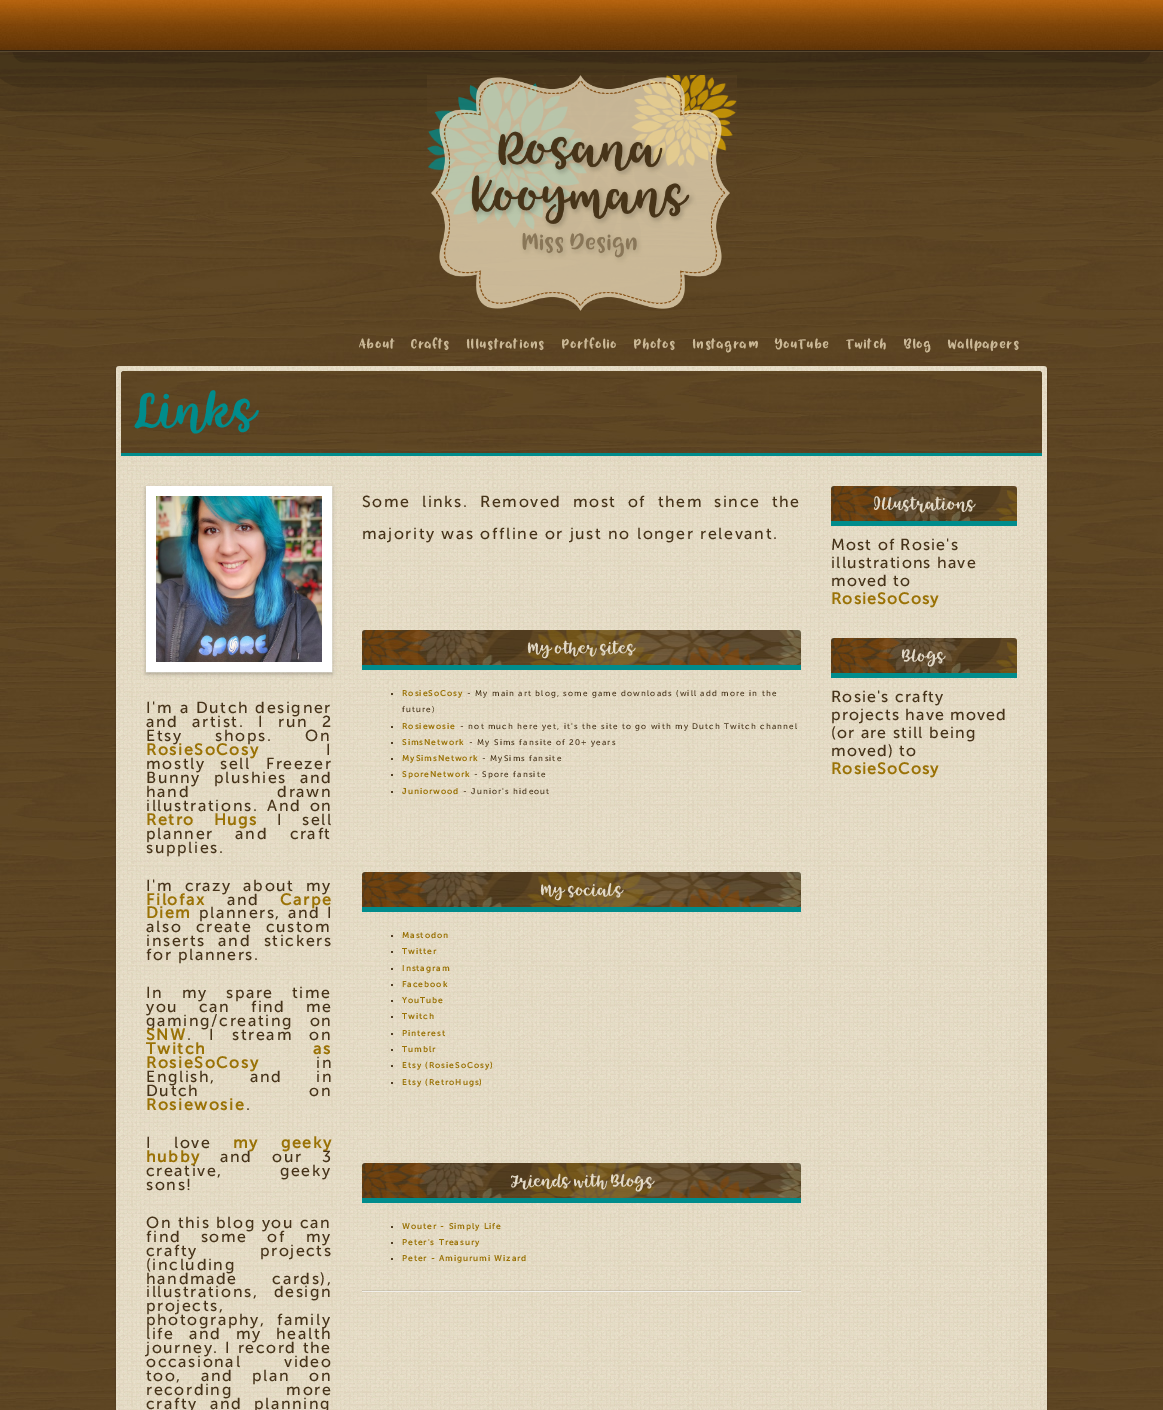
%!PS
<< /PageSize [1163 1410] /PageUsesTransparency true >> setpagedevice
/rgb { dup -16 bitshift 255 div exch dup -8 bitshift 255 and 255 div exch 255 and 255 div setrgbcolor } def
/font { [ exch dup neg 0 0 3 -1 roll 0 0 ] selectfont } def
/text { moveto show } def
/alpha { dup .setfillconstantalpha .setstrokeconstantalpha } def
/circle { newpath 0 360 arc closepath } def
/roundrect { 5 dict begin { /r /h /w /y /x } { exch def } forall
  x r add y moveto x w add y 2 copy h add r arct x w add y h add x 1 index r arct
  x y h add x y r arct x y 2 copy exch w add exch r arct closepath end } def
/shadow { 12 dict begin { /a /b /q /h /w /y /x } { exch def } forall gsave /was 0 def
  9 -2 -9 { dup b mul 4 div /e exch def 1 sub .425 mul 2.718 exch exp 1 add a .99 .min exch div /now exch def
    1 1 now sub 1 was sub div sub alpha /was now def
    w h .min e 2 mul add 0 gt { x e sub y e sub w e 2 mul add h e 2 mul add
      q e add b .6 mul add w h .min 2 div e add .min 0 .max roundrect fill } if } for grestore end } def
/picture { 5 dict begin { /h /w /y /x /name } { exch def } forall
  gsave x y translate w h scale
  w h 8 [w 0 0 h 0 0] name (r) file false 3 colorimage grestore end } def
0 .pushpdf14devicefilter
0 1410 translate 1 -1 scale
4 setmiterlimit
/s1 { /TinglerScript-Regular 40 font 16#008C8C rgb } def
/s2 { /TinglerScript-Regular 14 font 16#E2D9C7 rgb } def
16#FFFFFF rgb
0 0 1163 1410 rectfill
(pic1.raw) 0 52 1163 1358 picture
16#000000 rgb
0 25 1163 50 0 50 0.5 shadow
16#584831 rgb
0 51 1163 1 rectfill
16#312312 rgb
0 50 1163 1 rectfill
(pic2.raw) 0 0 1163 50 picture
(pic3.raw) 427 75 310 179 picture
(pic4.raw) 431 75 299 236 picture
/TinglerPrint-Bold 11.5 font
16#CAB896 rgb
359 348 moveto 1.15 0 (About) ashow
411 348 moveto 1.15 0 (Crafts) ashow
467 348 moveto 1.15 0 (Illustrations) ashow
562 348 moveto 1.15 0 (Portfolio) ashow
634 348 moveto 1.15 0 (Photos) ashow
693 348 moveto 1.15 0 (Instagram) ashow
775 348 moveto 1.15 0 (YouTube) ashow
847 348 moveto 1.15 0 (Twitch) ashow
904 348 moveto 1.15 0 (Blog) ashow
948 348 moveto 1.15 0 (Wallpapers) ashow
16#000000 rgb
116 367 931 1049 3 1 0.25 shadow
(pic5.raw) 116 366 931 1044 picture
(pic6.raw) 121 371 921 82 picture
16#008C8C rgb
121 453 921 3 rectfill
s1
(Links) 136 425 text
/MuseoSans-Regular 16 font
16#463319 rgb
362 507 moveto 5.5 0 32 1.6 0 (Some links. Removed most of them since the) awidthshow
362 539 moveto 1.6 0 (majority was offline or just no longer relevant.) ashow
(pic7.raw) 362 630 439 35 picture
16#008C8C rgb
362 665 439 5 rectfill
s2
(My other sites) 528 653 text
16#463319 rgb
392 694 1 circle fill
/MuseoSans-Bold 8.15 font
16#9A7206 rgb
402 696 moveto 1.15 0 (RosieSoCosy) ashow
/MuseoSans-Regular 8.15 font
16#463319 rgb
467 696 moveto 1.15 0 (- My main art blog, some game downloads \(will add more in the) ashow
402 712 moveto 1.15 0 (future\)) ashow
392 727 1 circle fill
/MuseoSans-Bold 8.15 font
16#9A7206 rgb
402 729 moveto 1.15 0 (Rosiewosie) ashow
/MuseoSans-Regular 8.15 font
16#463319 rgb
460 729 moveto 1.15 0 (- not much here yet, it's the site to go with my Dutch Twitch channel) ashow
392 743 1 circle fill
/MuseoSans-Bold 8.15 font
16#9A7206 rgb
402 745 moveto 1.15 0 (SimsNetwork) ashow
/MuseoSans-Regular 8.15 font
16#463319 rgb
469 745 moveto 1.15 0 (- My Sims fansite of 20+ years) ashow
392 759 1 circle fill
/MuseoSans-Bold 8.15 font
16#9A7206 rgb
402 761 moveto 1.15 0 (MySimsNetwork) ashow
/MuseoSans-Regular 8.15 font
16#463319 rgb
482 761 moveto 1.15 0 (- MySims fansite) ashow
392 775 1 circle fill
/MuseoSans-Bold 8.15 font
16#9A7206 rgb
402 777 moveto 1.15 0 (SporeNetwork) ashow
/MuseoSans-Regular 8.15 font
16#463319 rgb
474 777 moveto 1.15 0 (- Spore fansite) ashow
392 792 1 circle fill
/MuseoSans-Bold 8.15 font
16#9A7206 rgb
402 794 moveto 1.15 0 (Juniorwood) ashow
/MuseoSans-Regular 8.15 font
16#463319 rgb
463 794 moveto 1.15 0 (- Junior's hideout) ashow
(pic8.raw) 362 872 439 35 picture
16#008C8C rgb
362 907 439 5 rectfill
s2
(My socials) 541 895 text
16#463319 rgb
392 936 1 circle fill
/MuseoSans-Bold 8.15 font
16#9A7206 rgb
402 938 moveto 1.15 0 (Mastodon) ashow
16#463319 rgb
392 952 1 circle fill
16#9A7206 rgb
402 954 moveto 1.15 0 (Twitter) ashow
16#463319 rgb
392 969 1 circle fill
16#9A7206 rgb
402 971 moveto 1.15 0 (Instagram) ashow
16#463319 rgb
392 985 1 circle fill
16#9A7206 rgb
402 987 moveto 1.15 0 (Facebook) ashow
16#463319 rgb
392 1001 1 circle fill
16#9A7206 rgb
402 1003 moveto 1.15 0 (YouTube) ashow
16#463319 rgb
392 1017 1 circle fill
16#9A7206 rgb
402 1019 moveto 1.15 0 (Twitch) ashow
16#463319 rgb
392 1034 1 circle fill
16#9A7206 rgb
402 1036 moveto 1.15 0 (Pinterest) ashow
16#463319 rgb
392 1050 1 circle fill
16#9A7206 rgb
402 1052 moveto 1.15 0 (Tumblr) ashow
16#463319 rgb
392 1066 1 circle fill
16#9A7206 rgb
402 1068 moveto 1.15 0 (Etsy \(RosieSoCosy\)) ashow
16#463319 rgb
392 1083 1 circle fill
16#9A7206 rgb
402 1085 moveto 1.15 0 (Etsy \(RetroHugs\)) ashow
(pic9.raw) 362 1163 439 35 picture
16#008C8C rgb
362 1198 439 5 rectfill
s2
(Friends with Blogs) 511 1186 text
16#463319 rgb
392 1227 1 circle fill
/MuseoSans-Bold 8.15 font
16#9A7206 rgb
402 1229 moveto 1.15 0 (Wouter - Simply Life) ashow
16#463319 rgb
392 1243 1 circle fill
16#9A7206 rgb
402 1245 moveto 1.15 0 (Peter's Treasury) ashow
16#463319 rgb
392 1259 1 circle fill
16#9A7206 rgb
402 1261 moveto 1.15 0 (Peter - Amigurumi Wizard) ashow
0.1 alpha
16#000000 rgb
362 1290 439 2 rectfill
0.75 alpha
16#FFFFFF rgb
362 1291 439 1 rectfill
1 alpha
(pic10.raw) 831 486 186 35 picture
16#008C8C rgb
831 521 186 5 rectfill
s2
(Illustrations) 874 509 text
/MuseoSans-Regular 16 font
16#463319 rgb
831 550 moveto 1.15 0 (Most of Rosie's) ashow
831 568 moveto 1.15 0 (illustrations have) ashow
831 586 moveto 1.15 0 (moved to) ashow
/MuseoSans-Bold 16 font
16#9A7206 rgb
831 604 moveto 1.15 0 (RosieSoCosy) ashow
(pic11.raw) 831 638 186 35 picture
16#008C8C rgb
831 673 186 5 rectfill
s2
(Blogs) 902 661 text
/MuseoSans-Regular 16 font
16#463319 rgb
831 702 moveto 1.15 0 (Rosie's crafty) ashow
831 720 moveto 1.15 0 (projects have moved) ashow
831 738 moveto 1.15 0 (\(or are still being) ashow
831 756 moveto 1.15 0 (moved\) to) ashow
/MuseoSans-Bold 16 font
16#9A7206 rgb
831 774 moveto 1.15 0 (RosieSoCosy) ashow
16#000000 rgb
146 488 186 186 0 2 0.25 shadow
16#FFFFFF rgb
10 setlinewidth
151 491 176 176 rectstroke
(pic12.raw) 156 496 166 166 picture
/MuseoSans-Regular 16 font
16#463319 rgb
146 713 moveto 0.5 0 32 1.6 0 (I'm a Dutch designer) awidthshow
146 727 moveto 8 0 32 1.6 0 (and artist. I run 2) awidthshow
146 741 moveto 27 0 32 1.6 0 (Etsy shops. On) awidthshow
/MuseoSans-Bold 16 font
16#9A7206 rgb
146 755 moveto 1.6 0 (RosieSoCosy) ashow
/MuseoSans-Regular 16 font
16#463319 rgb
326 755 moveto 1.6 0 (I) ashow
146 769 moveto 9 0 32 1.6 0 (mostly sell Freezer) awidthshow
146 783 moveto 7 0 32 1.6 0 (Bunny plushies and) awidthshow
146 797 moveto 82 0 32 1.6 0 (hand drawn) awidthshow
146 811 moveto 3 0 32 1.6 0 (illustrations. And on) awidthshow
/MuseoSans-Bold 16 font
16#9A7206 rgb
146 825 moveto 13 0 32 1.6 0 (Retro Hugs) awidthshow
/MuseoSans-Regular 16 font
16#463319 rgb
277 825 moveto 13 0 32 1.6 0 (I sell) awidthshow
146 839 moveto 16 0 32 1.6 0 (planner and craft) awidthshow
146 853 moveto 1.6 0 (supplies.) ashow
146 891 moveto 5.5 0 32 1.6 0 (I'm crazy about my) awidthshow
/MuseoSans-Bold 16 font
16#9A7206 rgb
146 905 moveto 1.6 0 (Filofax) ashow
/MuseoSans-Regular 16 font
16#463319 rgb
227 905 moveto 1.6 0 (and) ashow
/MuseoSans-Bold 16 font
16#9A7206 rgb
280 905 moveto 1.6 0 (Carpe) ashow
146 918 moveto 1.6 0 (Diem) ashow
/MuseoSans-Regular 16 font
16#463319 rgb
199 918 moveto 1 0 32 1.6 0 (planners, and I) awidthshow
146 932 moveto 8 0 32 1.6 0 (also create custom) awidthshow
146 946 moveto 7 0 32 1.6 0 (inserts and stickers) awidthshow
146 960 moveto 1.6 0 (for planners.) ashow
146 998 moveto 12.5 0 32 1.6 0 (In my spare time) awidthshow
146 1012 moveto 14.5 0 32 1.6 0 (you can find me) awidthshow
146 1026 moveto 11 0 32 1.6 0 (gaming/creating on) awidthshow
/MuseoSans-Bold 16 font
16#9A7206 rgb
146 1040 moveto 1.6 0 (SNW) ashow
/MuseoSans-Regular 16 font
16#463319 rgb
187 1040 moveto 11 0 32 1.6 0 (. I stream on) awidthshow
/MuseoSans-Bold 16 font
16#9A7206 rgb
146 1054 moveto 101 0 32 1.6 0 (Twitch as) awidthshow
146 1068 moveto 1.6 0 (RosieSoCosy) ashow
/MuseoSans-Regular 16 font
16#463319 rgb
316 1068 moveto 1.6 0 (in) ashow
146 1082 moveto 28 0 32 1.6 0 (English, and in) awidthshow
146 1096 moveto 104 0 32 1.6 0 (Dutch on) awidthshow
/MuseoSans-Bold 16 font
16#9A7206 rgb
146 1110 moveto 1.6 0 (Rosiewosie) ashow
/MuseoSans-Regular 16 font
16#463319 rgb
246 1110 moveto 1.6 0 (.) ashow
146 1148 moveto 16 0 32 1.6 0 (I love) awidthshow
/MuseoSans-Bold 16 font
16#9A7206 rgb
233 1148 moveto 16 0 32 1.6 0 (my geeky) awidthshow
146 1162 moveto 1.6 0 (hubby) ashow
/MuseoSans-Regular 16 font
16#463319 rgb
220 1162 moveto 14 0 32 1.6 0 (and our 3) awidthshow
146 1176 moveto 51 0 32 1.6 0 (creative, geeky) awidthshow
146 1190 moveto 1.6 0 (sons!) ashow
146 1228 moveto 1.6 0 (On this blog you can) ashow
146 1242 moveto 14 0 32 1.6 0 (find some of my) awidthshow
146 1256 moveto 56 0 32 1.6 0 (crafty projects) awidthshow
146 1270 moveto 1.6 0 (\(including) ashow
146 1284 moveto 29 0 32 1.6 0 (handmade cards\),) awidthshow
146 1297 moveto 10 0 32 1.6 0 (illustrations, design) awidthshow
146 1311 moveto 1.6 0 (projects,) ashow
146 1325 moveto 6 0 32 1.6 0 (photography, family) awidthshow
146 1339 moveto 8.5 0 32 1.6 0 (life and my health) awidthshow
146 1353 moveto 0.5 0 32 1.6 0 (journey. I record the) awidthshow
146 1367 moveto 37 0 32 1.6 0 (occasional video) awidthshow
146 1381 moveto 13 0 32 1.6 0 (too, and plan on) awidthshow
146 1395 moveto 48 0 32 1.6 0 (recording more) awidthshow
146 1409 moveto 6 0 32 1.6 0 (crafty and planning) awidthshow
.poppdf14devicefilter showpage
